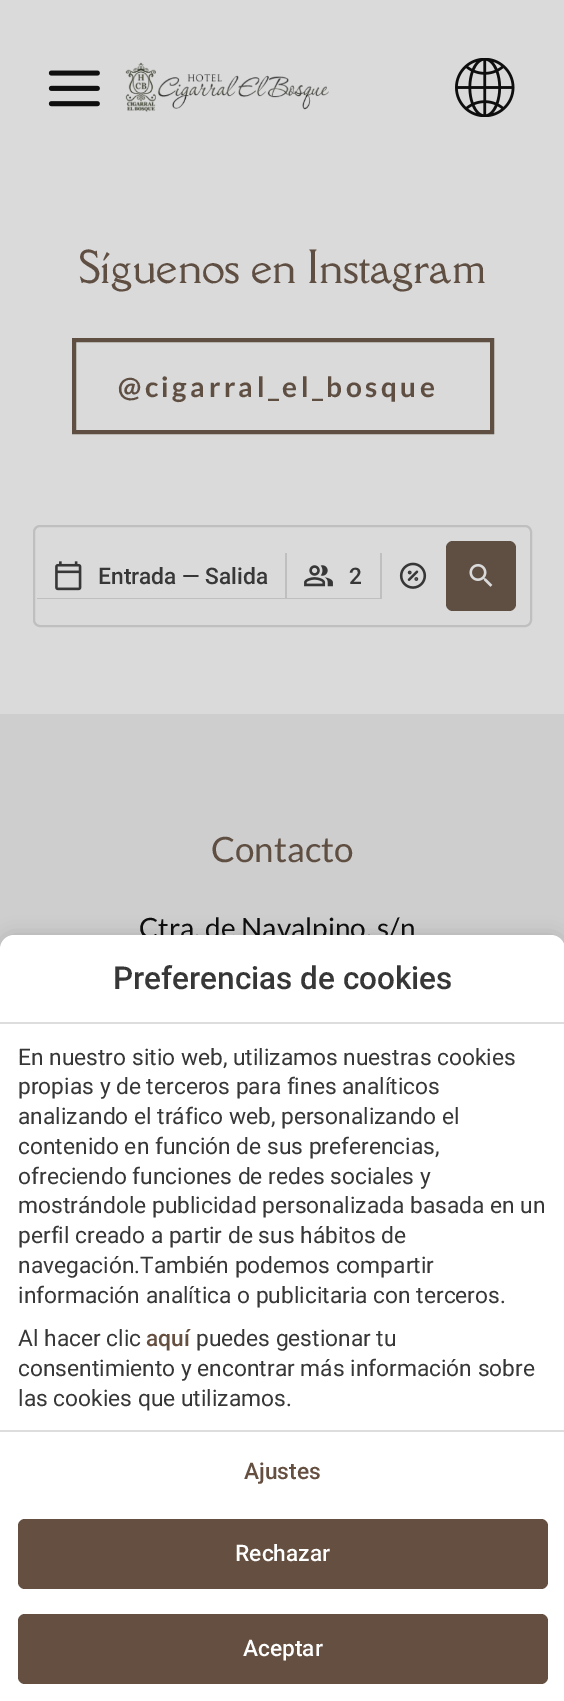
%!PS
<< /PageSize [564 1701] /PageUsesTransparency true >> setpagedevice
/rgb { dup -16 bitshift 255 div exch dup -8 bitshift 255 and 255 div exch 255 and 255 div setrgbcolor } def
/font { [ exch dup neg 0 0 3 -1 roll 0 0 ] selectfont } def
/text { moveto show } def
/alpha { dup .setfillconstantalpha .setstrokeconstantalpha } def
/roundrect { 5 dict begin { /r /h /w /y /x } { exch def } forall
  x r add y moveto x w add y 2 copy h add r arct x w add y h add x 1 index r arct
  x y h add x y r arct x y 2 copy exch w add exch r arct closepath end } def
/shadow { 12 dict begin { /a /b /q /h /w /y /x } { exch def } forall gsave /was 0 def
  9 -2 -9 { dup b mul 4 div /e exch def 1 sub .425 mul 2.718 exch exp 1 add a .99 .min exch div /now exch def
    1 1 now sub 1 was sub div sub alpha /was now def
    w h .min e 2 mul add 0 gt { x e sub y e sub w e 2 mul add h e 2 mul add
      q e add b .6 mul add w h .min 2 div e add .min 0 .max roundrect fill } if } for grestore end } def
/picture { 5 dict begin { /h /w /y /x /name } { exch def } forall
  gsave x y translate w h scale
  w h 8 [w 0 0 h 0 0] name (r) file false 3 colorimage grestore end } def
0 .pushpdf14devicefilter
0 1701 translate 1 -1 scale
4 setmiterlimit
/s1 { /DellaRespira-Medium 42 font 16#5F4E42 rgb } def
/s2 { /Roboto-Medium 22.75 font 16#373737 rgb } def
/s3 { /Lato-Regular 35 font 16#5F4E42 rgb } def
/s4 { /Lato-Regular 28 font 16#0E0E0E rgb } def
/s5 { /Roboto-Medium 31.5 font 16#373737 rgb } def
/s6 { /Roboto-Regular 22.75 font 16#373737 rgb } def
/s7 { /Roboto-Medium 22.75 font 16#654F40 rgb } def
/s8 { /Roboto-Medium 22.75 font 16#FFFFFF rgb } def
16#DADADA rgb
0 0 564 1701 rectfill
(pic1.raw) 48 70 52 37 picture
(pic2.raw) 125 62 204 50 picture
(pic3.raw) 455 58 60 59 picture
s1
(Síguenos en Instagram) 79 283 text
4 setlinewidth
74 340 418 92 rectstroke
/Lato-Bold 28 font
118 397 moveto 3.5 0 (@cigarral_el_bosque) ashow
16#BFBFBF rgb
2 setlinewidth
34 526 497 100 6 roundrect stroke
37 598 moveto 37 599 lineto 287 599 lineto 287 553 lineto 285 553 lineto 285 598 lineto closepath fill
(pic4.raw) 55 561 27 30 picture
s2
(Entrada — Salida) 98 584 text
16#BFBFBF rgb
287 598 moveto 287 599 lineto 382 599 lineto 382 553 lineto 380 553 lineto 380 598 lineto closepath fill
(pic5.raw) 304 565 29 22 picture
s2
(2) 349 584 text
(pic6.raw) 399 562 28 27 picture
16#5F4E42 rgb
446 541 70 70 7 roundrect fill
(pic7.raw) 469 563 24 24 picture
16#CECECE rgb
0 714 564 235 rectfill
s3
(Contacto) 211 862 text
s4
(Ctra. de Navalpino, s/n) 139 938 text
16#000000 rgb
0 935 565 766 14 9 0.15 shadow
16#FFFFFF rgb
14 935 moveto 551 935 lineto 558.5 935 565 941.5 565 949 curveto 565 1701 lineto 0 1701 lineto 0 949 lineto 0 941.5 6.5 935 14 935 curveto closepath fill
16#DDDDDD rgb
0 1022 564 2 rectfill
s5
(Preferencias de cookies) 113 989 text
16#DDDDDD rgb
0 1430 564 2 rectfill
s6
(En nuestro sitio web, utilizamos nuestras cookies) 18 1065 text
(propias y de terceros para fines analíticos) 18 1094 text
(analizando el tráfico web, personalizando el) 18 1124 text
(contenido en función de sus preferencias,) 18 1154 text
(ofreciendo funciones de redes sociales y) 18 1184 text
(mostrándole publicidad personalizada basada en un) 18 1213 text
(perfil creado a partir de sus hábitos de) 18 1243 text
(navegación.También podemos compartir) 18 1273 text
(información analítica o publicitaria con terceros.) 18 1303 text
(Al hacer clic) 18 1346 text
s7
(aquí) 146 1346 text
s6
(puedes gestionar tu) 196 1346 text
(consentimiento y encontrar más información sobre) 18 1376 text
(las cookies que utilizamos.) 18 1406 text
s7
(Ajustes) 244 1479 text
18 1519 530 70 7 roundrect fill
s8
(Rechazar) 235 1561 text
16#654F40 rgb
18 1614 530 70 7 roundrect fill
s8
(Aceptar) 243 1656 text
.poppdf14devicefilter showpage
